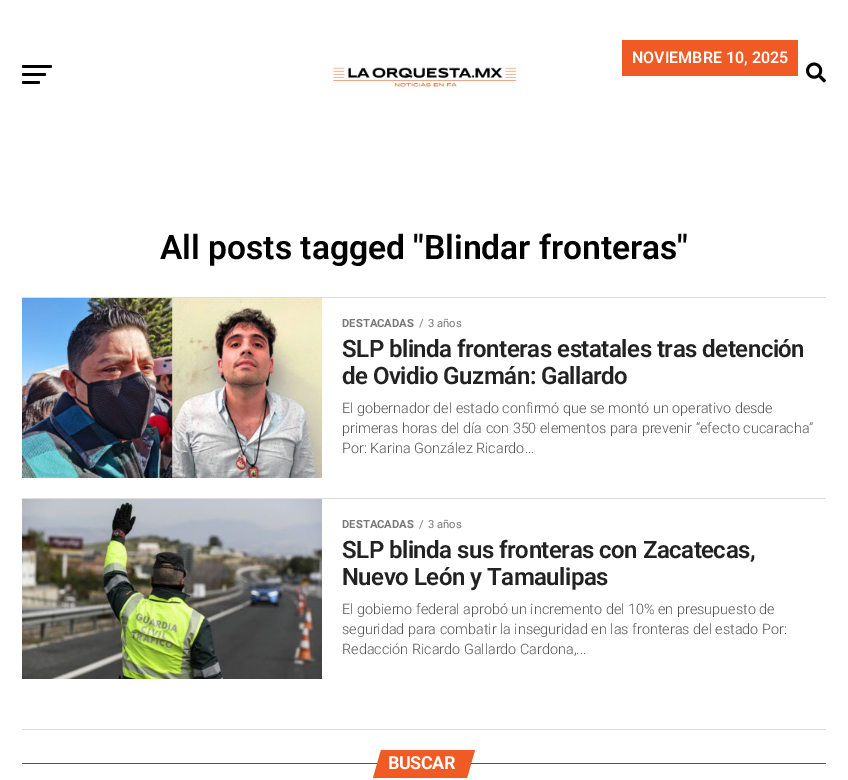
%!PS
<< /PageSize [848 780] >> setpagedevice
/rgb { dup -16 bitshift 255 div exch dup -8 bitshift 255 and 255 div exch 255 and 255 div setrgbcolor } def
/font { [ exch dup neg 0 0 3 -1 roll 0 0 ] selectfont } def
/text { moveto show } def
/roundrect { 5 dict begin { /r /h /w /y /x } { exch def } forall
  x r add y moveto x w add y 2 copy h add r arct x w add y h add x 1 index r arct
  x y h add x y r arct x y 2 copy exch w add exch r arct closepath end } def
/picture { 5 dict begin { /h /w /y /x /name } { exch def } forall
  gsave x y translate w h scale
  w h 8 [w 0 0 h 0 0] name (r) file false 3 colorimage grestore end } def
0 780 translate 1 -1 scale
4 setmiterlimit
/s1 { /Roboto-SemiBold 16 font 16#FFFFFF rgb } def
/s2 { /Roboto-SemiBold 33.6 font 16#000000 rgb } def
/s3 { /Roboto-Bold 11.25 font 16#777777 rgb } def
/s4 { /Roboto-Regular 11.25 font 16#777777 rgb } def
/s5 { /Roboto-Light 14.4 font 16#555555 rgb } def
16#FFFFFF rgb
0 0 848 780 rectfill
16#F05A24 rgb
622 40 176 36 rectfill
s1
(NOVIEMBRE 10, 2025) 632 63 text
16#000000 rgb
22 65 30 3 1.5 roundrect fill
22 73 24 3 1.5 roundrect fill
22 81 18 3 1.5 roundrect fill
(pic1.raw) 333 67 184 20 picture
(pic2.raw) 806 62 20 21 picture
s2
(All posts tagged "Blindar fronteras") 160 259 text
16#DDDDDD rgb
22 297 804 1 rectfill
(pic3.raw) 22 298 300 180 picture
s3
(DESTACADAS) 342 327 text
s4
(/) 419 327 text
(3 años) 428 327 text
/Roboto-SemiBold 24 font
16#222222 rgb
342 357 moveto -0.5 0 (SLP blinda fronteras estatales tras detención) ashow
342 384 moveto -0.5 0 (de Ovidio Guzmán: Gallardo) ashow
s5
(El gobernador del estado confirmó que se montó un operativo desde) 342 413 text
(primeras horas del día con 350 elementos para prevenir “efecto cucaracha”) 342 433 text
(Por: Karina González Ricardo...) 342 453 text
16#DDDDDD rgb
22 498 804 1 rectfill
(pic4.raw) 22 499 300 180 picture
s3
(DESTACADAS) 342 528 text
s4
(/) 419 528 text
(3 años) 428 528 text
/Roboto-SemiBold 24 font
16#222222 rgb
342 558 moveto -0.5 0 (SLP blinda sus fronteras con Zacatecas,) ashow
342 585 moveto -0.5 0 (Nuevo León y Tamaulipas) ashow
s5
(El gobierno federal aprobó un incremento del 10% en presupuesto de) 342 614 text
(seguridad para combatir la inseguridad en las fronteras del estado Por:) 342 634 text
(Redacción Ricardo Gallardo Cardona,...) 342 654 text
16#DDDDDD rgb
22 729 804 1 rectfill
16#555555 rgb
22 763 804 1 rectfill
16#F05A24 rgb
381 750 moveto 475 750 lineto 467 778 lineto 373 778 lineto closepath fill
/Roboto-Bold 18 font
16#FFFFFF rgb
388 769 moveto -0.5 0 (BUSCAR) ashow
showpage
